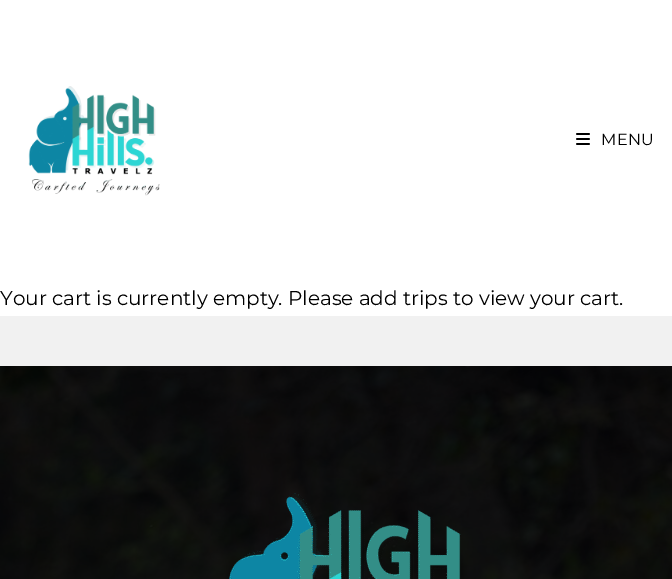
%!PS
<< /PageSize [672 579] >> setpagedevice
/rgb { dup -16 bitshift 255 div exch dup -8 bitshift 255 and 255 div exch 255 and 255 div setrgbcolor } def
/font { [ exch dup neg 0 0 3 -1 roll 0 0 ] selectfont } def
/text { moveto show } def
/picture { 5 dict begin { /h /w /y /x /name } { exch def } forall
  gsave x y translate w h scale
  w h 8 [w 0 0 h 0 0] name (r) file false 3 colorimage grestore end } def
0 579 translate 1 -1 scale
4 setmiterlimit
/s1 { /Montserrat-Regular 20 font 16#000000 rgb } def
16#F1F1F1 rgb
0 0 672 579 rectfill
16#FFFFFF rgb
0 0 672 316 rectfill
(pic1.raw) 28 86 132 110 picture
(pic2.raw) 576 133 14 12 picture
/Montserrat-Regular 16 font
16#000000 rgb
601 145 moveto 0.5 0 (MENU) ashow
s1
(Your cart is currently empty. Please add trips to view your cart.) 0 305 text
(pic3.raw) 0 366 672 213 picture
(pic4.raw) 229 493 232 86 picture
showpage
